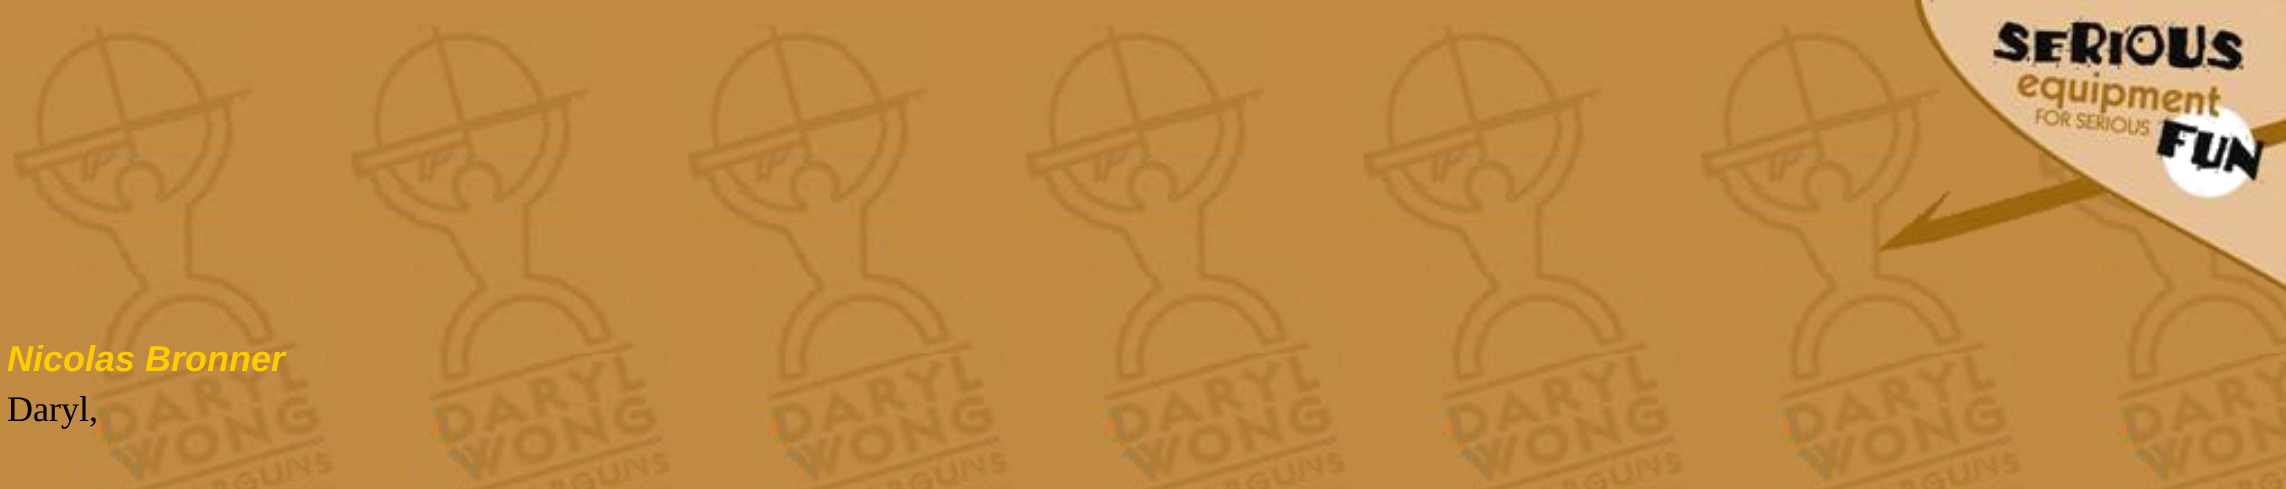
%!PS
<< /PageSize [2286 489] >> setpagedevice
/rgb { dup -16 bitshift 255 div exch dup -8 bitshift 255 and 255 div exch 255 and 255 div setrgbcolor } def
/font { [ exch dup neg 0 0 3 -1 roll 0 0 ] selectfont } def
/text { moveto show } def
/picture { 5 dict begin { /h /w /y /x /name } { exch def } forall
  gsave x y translate w h scale
  w h 8 [w 0 0 h 0 0] name (r) file false 3 colorimage grestore end } def
0 489 translate 1 -1 scale
4 setmiterlimit
/s1 { /LiberationSans-BoldItalic 36 font 16#FFCC00 rgb } def
/s2 { /LiberationSerif-Regular 36 font 16#000000 rgb } def
16#FFFFFF rgb
0 0 2286 489 rectfill
(pic1.raw) 0 0 2286 489 picture
(pic2.raw) 1878 0 408 293 picture
s1
(Nicolas Bronner) 7 371 text
s2
(Daryl,) 7 421 text
showpage
